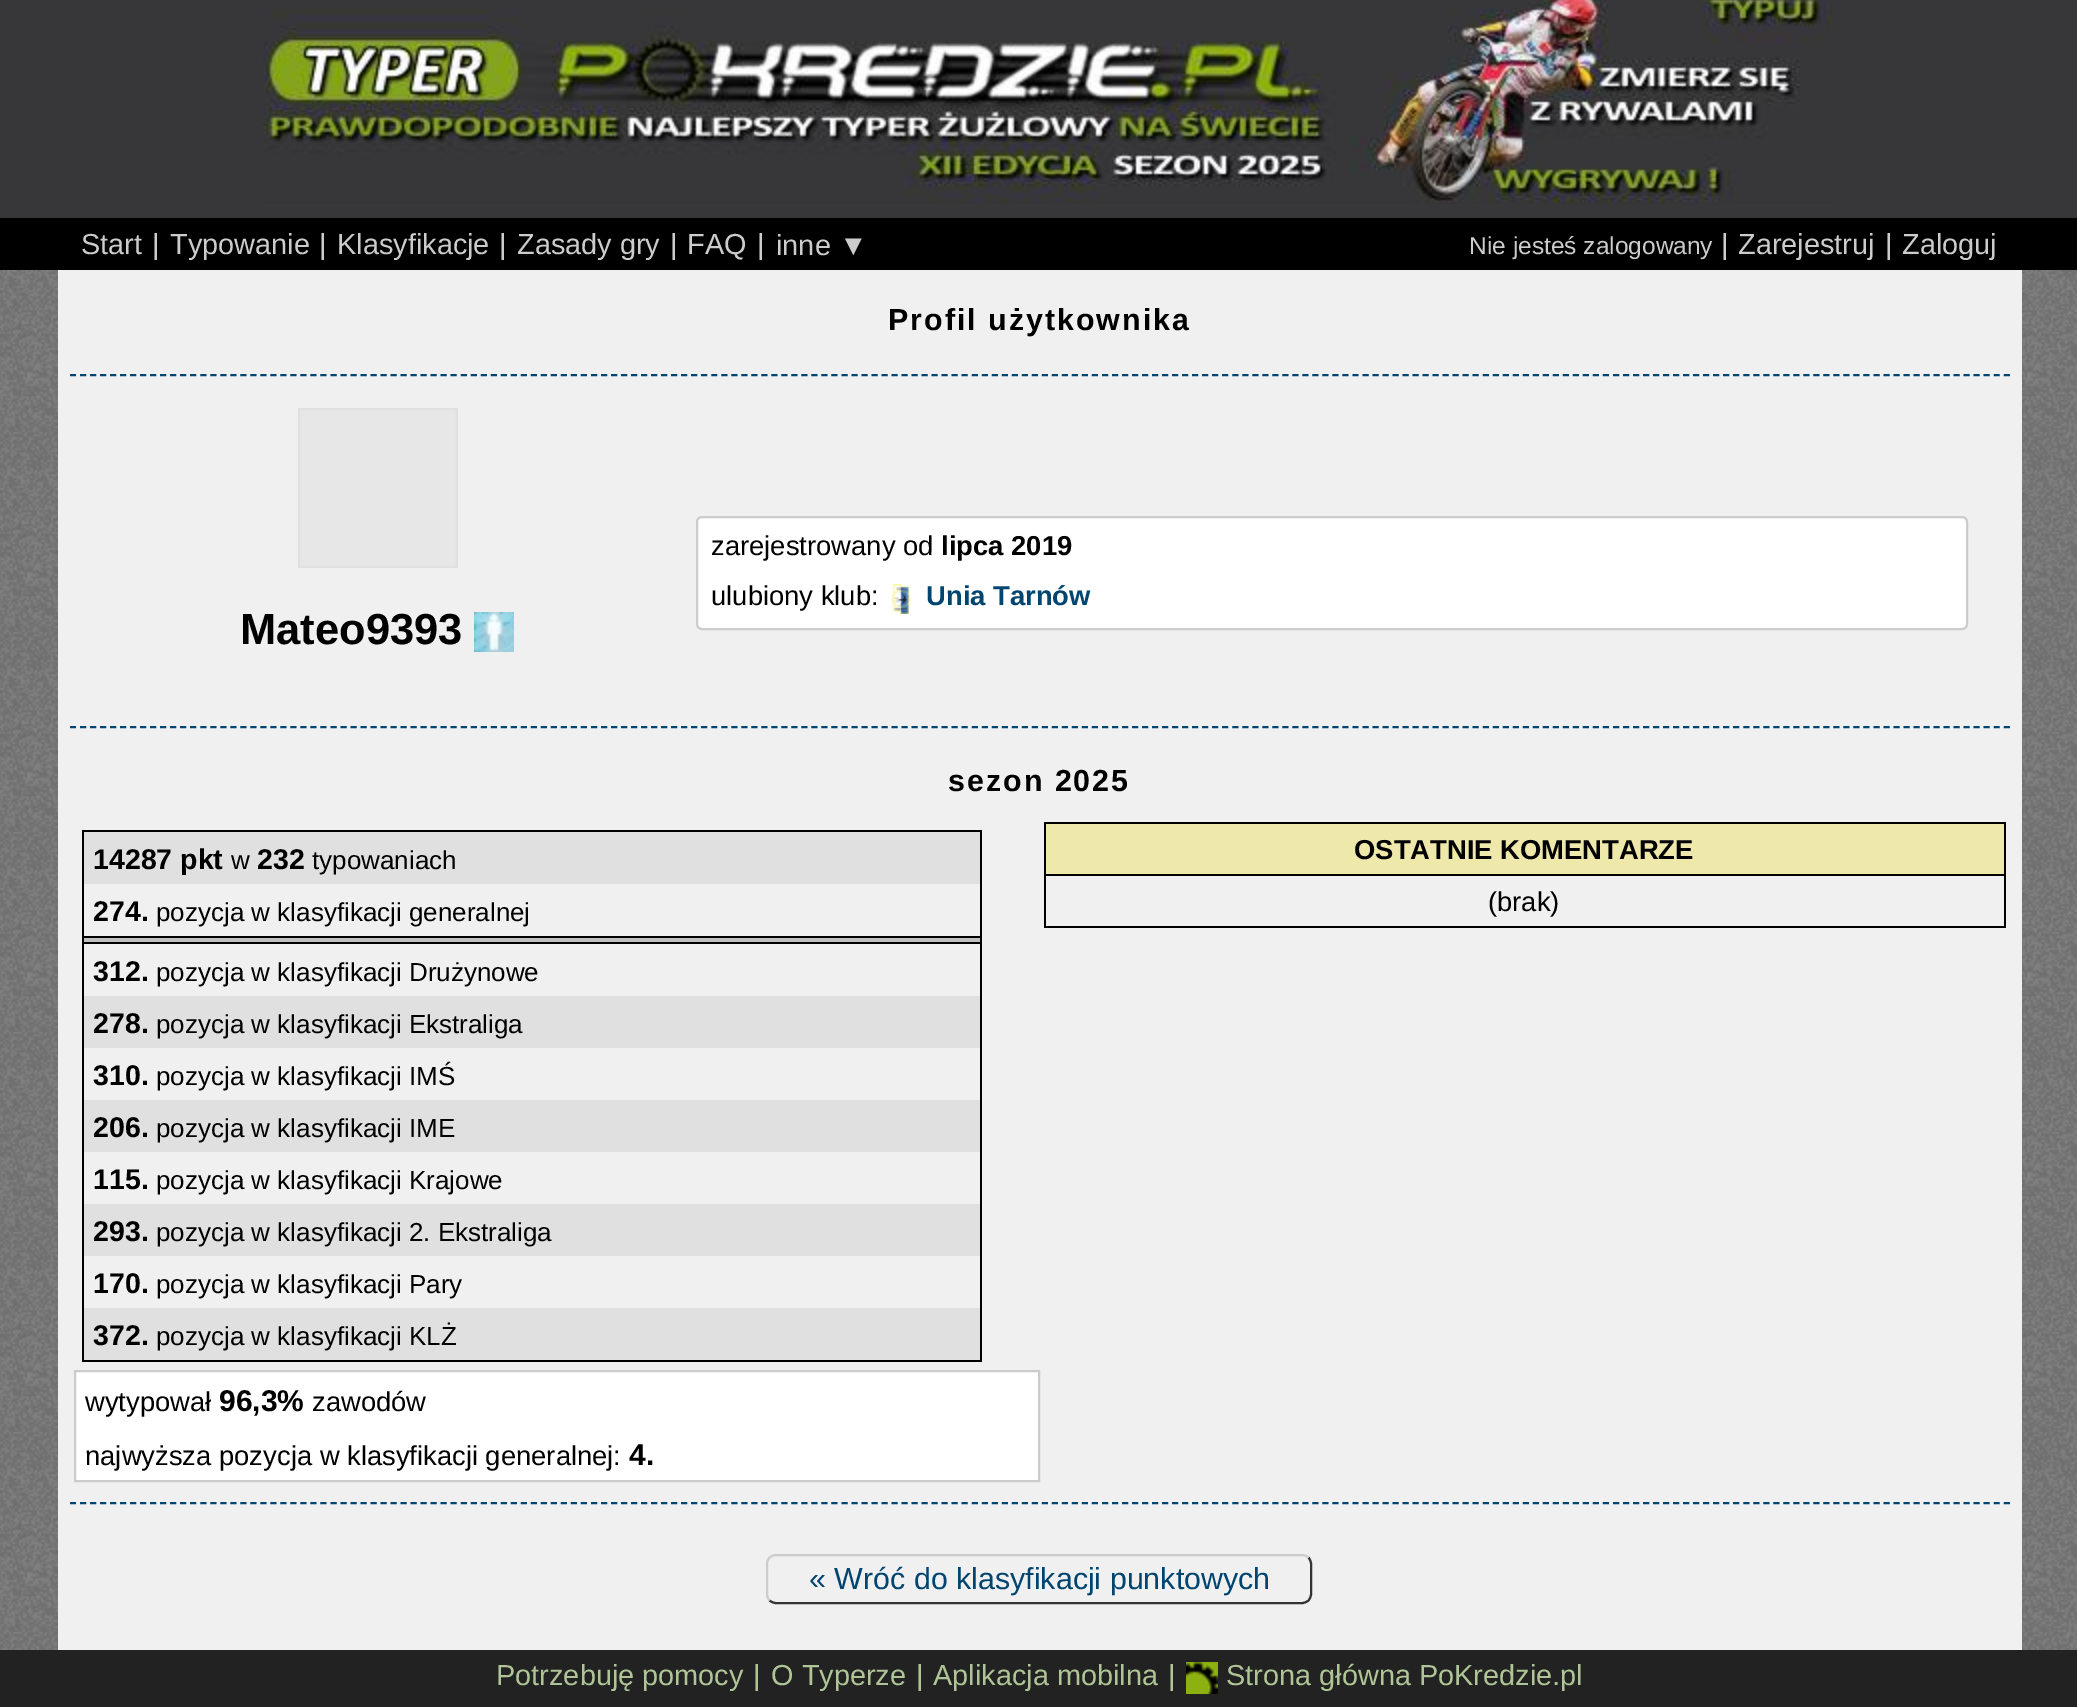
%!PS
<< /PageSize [2077 1707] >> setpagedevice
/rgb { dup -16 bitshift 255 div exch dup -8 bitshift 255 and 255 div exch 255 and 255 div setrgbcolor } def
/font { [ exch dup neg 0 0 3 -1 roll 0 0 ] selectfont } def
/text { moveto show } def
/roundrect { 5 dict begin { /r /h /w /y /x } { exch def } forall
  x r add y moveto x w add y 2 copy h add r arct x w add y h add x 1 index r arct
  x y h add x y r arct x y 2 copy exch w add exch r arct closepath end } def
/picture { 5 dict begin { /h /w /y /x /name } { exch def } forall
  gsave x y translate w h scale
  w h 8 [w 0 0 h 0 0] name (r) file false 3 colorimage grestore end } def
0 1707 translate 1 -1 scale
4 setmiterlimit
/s1 { /LiberationSans-Regular 28.9 font 16#CCCCCC rgb } def
/s2 { /LiberationSans-Regular 24.5 font 16#CCCCCC rgb } def
/s3 { /LiberationSans-Regular 27.4 font 16#000000 rgb } def
/s4 { /LiberationSans-Bold 27.4 font 16#000000 rgb } def
/s5 { /LiberationSans-Bold 27.4 font 16#004470 rgb } def
/s6 { /LiberationSans-Bold 43.5 font 16#000000 rgb } def
/s7 { /LiberationSans-Bold 28.5 font 16#000000 rgb } def
/s8 { /LiberationSans-Regular 26 font 16#000000 rgb } def
/s9 { /LiberationSans-Bold 30 font 16#000000 rgb } def
/s10 { /LiberationSans-Regular 30.4 font 16#004470 rgb } def
/s11 { /LiberationSans-Regular 28.9 font 16#B0C596 rgb } def
16#222222 rgb
0 0 2077 1707 rectfill
16#373739 rgb
0 0 2077 218 rectfill
(pic1.raw) 262 0 1571 204 picture
16#000000 rgb
0 218 2077 52 rectfill
s1
(Start) 81 254 text
(|) 152 254 text
(Typowanie) 170 254 text
(|) 319 254 text
(Klasyfikacje) 337 254 text
(|) 499 254 text
(Zasady gry) 517 254 text
(|) 670 254 text
(FAQ) 687 254 text
(|) 757 254 text
(inne ▼) 776 255 text
s2
(Nie jesteś zalogowany) 1469 254 text
s1
(|) 1721 254 text
(Zarejestruj) 1738 254 text
(|) 1885 254 text
(Zaloguj) 1902 254 text
(pic2.raw) 0 270 2077 1380 picture
16#F0F0F0 rgb
58 270 1964 1380 rectfill
/LiberationSans-Bold 30.4 font
16#000000 rgb
888 330 moveto 2 0 (Profil użytkownika) ashow
16#004470 rgb
2 setlinewidth
[6 4.02] 0 setdash
70 375 moveto 2010 375 lineto stroke
16#FFFFFF rgb
697 517 1270 112 5 roundrect gsave fill grestore
16#CCCCCC rgb
[] 0 setdash
stroke
s3
(zarejestrowany od) 711 555 text
s4
(lipca 2019) 941 555 text
s3
(ulubiony klub:) 711 605 text
(pic3.raw) 891 584 20 30 picture
s5
(Unia Tarnów) 926 605 text
(pic4.raw) 298 408 160 160 picture
s6
(Mateo9393) 240 644 text
(pic5.raw) 474 612 40 40 picture
16#004470 rgb
[6 4.02] 0 setdash
70 727 moveto 2010 727 lineto stroke
/LiberationSans-Bold 30.4 font
16#000000 rgb
948 791 moveto 2 0 (sezon 2025) ashow
82 830 900 2 rectfill
980 830 2 532 rectfill
82 1360 900 2 rectfill
16#C0C0C0 rgb
82 938 898 4 rectfill
16#000000 rgb
82 830 2 532 rectfill
16#E0E0E0 rgb
84 832 896 52 rectfill
s7
(14287 pkt) 93 869 text
s8
(w) 231 869 text
s7
(232) 257 869 text
s8
(typowaniach) 312 869 text
s7
(274.) 93 921 text
s8
(pozycja w klasyfikacji generalnej) 156 921 text
82 936 900 2 rectfill
82 942 900 2 rectfill
s7
(312.) 93 981 text
s8
(pozycja w klasyfikacji Drużynowe) 156 981 text
16#E0E0E0 rgb
84 996 896 52 rectfill
s7
(278.) 93 1033 text
s8
(pozycja w klasyfikacji Ekstraliga) 156 1033 text
s7
(310.) 93 1085 text
s8
(pozycja w klasyfikacji IMŚ) 156 1085 text
16#E0E0E0 rgb
84 1100 896 52 rectfill
s7
(206.) 93 1137 text
s8
(pozycja w klasyfikacji IME) 156 1137 text
s7
(115.) 93 1189 text
s8
(pozycja w klasyfikacji Krajowe) 156 1189 text
16#E0E0E0 rgb
84 1204 896 52 rectfill
s7
(293.) 93 1241 text
s8
(pozycja w klasyfikacji 2. Ekstraliga) 156 1241 text
s7
(170.) 93 1293 text
s8
(pozycja w klasyfikacji Pary) 156 1293 text
16#E0E0E0 rgb
84 1308 896 52 rectfill
s7
(372.) 93 1345 text
s8
(pozycja w klasyfikacji KLŻ) 156 1345 text
16#FFFFFF rgb
75 1371 moveto 1039 1371 lineto 1039 1481 lineto 75 1481 lineto closepath gsave fill grestore
16#CCCCCC rgb
[] 0 setdash
stroke
s3
(wytypował) 85 1411 text
s9
(96,3%) 219 1411 text
s3
(zawodów) 312 1411 text
(najwyższa pozycja w klasyfikacji generalnej:) 85 1465 text
s9
(4.) 629 1465 text
1044 822 962 2 rectfill
2004 822 2 106 rectfill
1044 926 962 2 rectfill
1044 822 2 106 rectfill
1044 874 962 2 rectfill
16#EEE8AA rgb
1046 824 958 50 rectfill
s4
(OSTATNIE KOMENTARZE) 1354 859 text
s3
(\(brak\)) 1488 911 text
16#004470 rgb
[6 4.02] 0 setdash
70 1503 moveto 2010 1503 lineto stroke
16#333333 rgb
[] 0 setdash
1308.5 1557.5 moveto 1310 1559.5 1311 1561.5 1311 1564 curveto 1311 1594 lineto 1311 1596.5 1310 1598.5 1308.5 1600.5 curveto 1306.5 1602 1304.5 1603 1302 1603 curveto 776 1603 lineto 773.5 1603 771.5 1602 769.5 1600.5 curveto stroke
16#CCCCCC rgb
769.5 1600.5 moveto 768 1598.5 767 1596.5 767 1594 curveto 767 1564 lineto 767 1561.5 768 1559.5 769.5 1557.5 curveto 771.5 1556 773.5 1555 776 1555 curveto 1302 1555 lineto 1304.5 1555 1306.5 1556 1308.5 1557.5 curveto stroke
s10
(« Wróć do klasyfikacji punktowych) 809 1589 text
s11
(Potrzebuję pomocy) 496 1685 text
(|) 753 1685 text
(O Typerze) 771 1685 text
(|) 916 1685 text
(Aplikacja mobilna) 933 1685 text
(|) 1168 1685 text
(pic6.raw) 1186 1662 32 32 picture
(Strona główna PoKredzie.pl) 1226 1685 text
showpage
